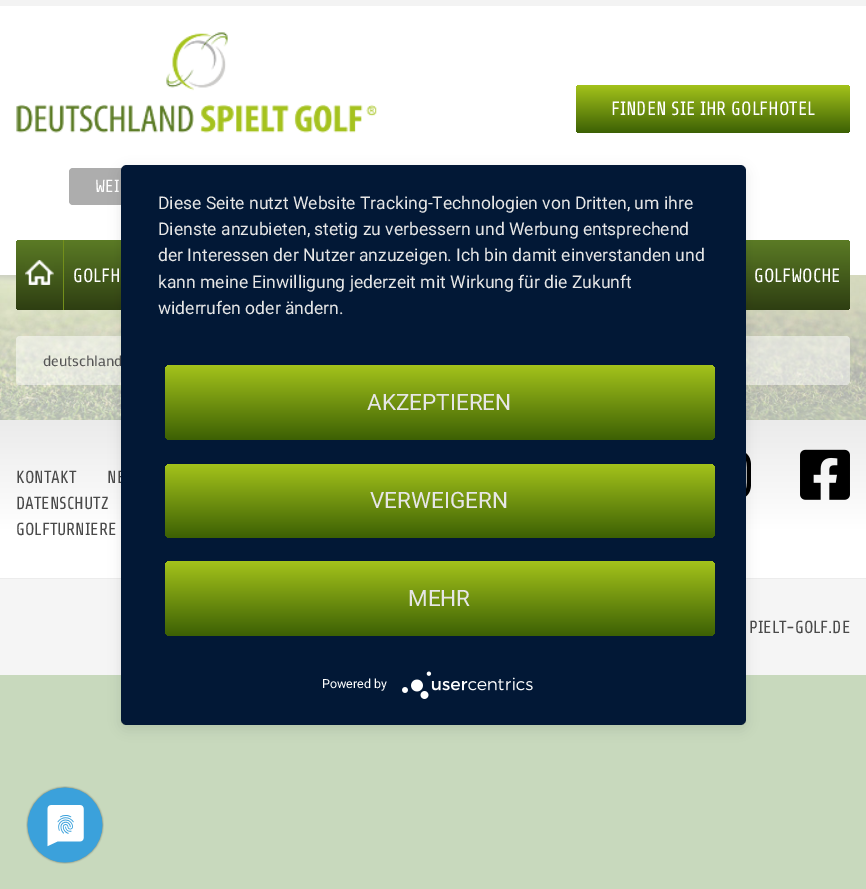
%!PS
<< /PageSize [866 889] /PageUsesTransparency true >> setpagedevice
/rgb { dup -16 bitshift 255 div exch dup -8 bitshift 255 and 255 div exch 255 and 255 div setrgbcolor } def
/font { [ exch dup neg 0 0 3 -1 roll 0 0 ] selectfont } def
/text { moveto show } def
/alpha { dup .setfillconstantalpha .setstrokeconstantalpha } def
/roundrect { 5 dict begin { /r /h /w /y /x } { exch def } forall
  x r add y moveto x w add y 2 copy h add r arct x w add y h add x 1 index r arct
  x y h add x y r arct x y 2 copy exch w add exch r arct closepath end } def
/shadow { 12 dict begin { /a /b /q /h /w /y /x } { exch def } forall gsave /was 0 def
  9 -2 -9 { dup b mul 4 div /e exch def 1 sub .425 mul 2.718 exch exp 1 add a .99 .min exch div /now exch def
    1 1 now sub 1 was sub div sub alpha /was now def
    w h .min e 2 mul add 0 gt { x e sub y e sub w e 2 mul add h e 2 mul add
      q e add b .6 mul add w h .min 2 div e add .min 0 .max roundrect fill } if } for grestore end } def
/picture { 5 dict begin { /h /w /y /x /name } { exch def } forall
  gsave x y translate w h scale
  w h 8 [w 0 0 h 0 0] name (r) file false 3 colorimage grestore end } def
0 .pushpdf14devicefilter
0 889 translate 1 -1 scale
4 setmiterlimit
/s1 { /Share-Regular 19.25 font 16#FFFFFF rgb } def
/s2 { /Share-Regular 17.5 font 16#FFFFFF rgb } def
/s3 { /Mako-Regular 15 font 16#555555 rgb } def
/s4 { /Share-Regular 17.5 font 16#4A4A4A rgb } def
/s5 { /Roboto-Regular 17.5 font 16#E6E6E6 rgb } def
/s6 { /Roboto-Regular 22.5 font 16#E6E6E6 rgb } def
/s7 { /Roboto-Regular 12.5 font 16#FFFFFF rgb } def
16#C8D9BD rgb
0 0 866 889 rectfill
(pic1.raw) 0 275 866 145 picture
16#F3F3F3 rgb
0 0 866 6 rectfill
16#FFFFFF rgb
0 6 866 269 rectfill
gsave 576 85 274 48 4 roundrect clip newpath
<< /ShadingType 2 /ColorSpace /DeviceRGB /Coords [713 85 713 133] /Extend [true true] /Function << /FunctionType 2 /Domain [0 1] /C0 [0.643 0.765 0.106] /C1 [0.235 0.376 0.016] /N 1 >> >> shfill grestore
s1
(FINDEN SIE IHR GOLFHOTEL) 611 115 text
(pic2.raw) 16 32 361 101 picture
16#ADADAD rgb
69 168 234 37 4 roundrect fill
s2
(WEI) 95 192 text
gsave 20 240 moveto 64 240 lineto 64 310 lineto 20 310 lineto 18 310 16 308 16 306 curveto 16 244 lineto 16 242 18 240 20 240 curveto closepath clip newpath
<< /ShadingType 2 /ColorSpace /DeviceRGB /Coords [39 240 39 310] /Extend [true true] /Function << /FunctionType 2 /Domain [0 1] /C0 [0.357 0.482 0.145] /C1 [0.18 0.243 0.071] /N 1 >> >> shfill grestore
16#738E1B rgb
63 240 1 70 rectfill
(pic3.raw) 25 260 29 25 picture
gsave 64 240 moveto 121 240 lineto 121 310 lineto 64 310 lineto closepath clip newpath
<< /ShadingType 2 /ColorSpace /DeviceRGB /Coords [118 240 118 310] /Extend [true true] /Function << /FunctionType 2 /Domain [0 1] /C0 [0.357 0.482 0.145] /C1 [0.18 0.243 0.071] /N 1 >> >> shfill grestore
s1
(GOLFH) 73 282 text
gsave 665 240 moveto 846 240 lineto 848 240 850 242 850 244 curveto 850 306 lineto 850 308 848 310 846 310 curveto 665 310 lineto closepath clip newpath
<< /ShadingType 2 /ColorSpace /DeviceRGB /Coords [758 240 758 310] /Extend [true true] /Function << /FunctionType 2 /Domain [0 1] /C0 [0.357 0.482 0.145] /C1 [0.18 0.243 0.071] /N 1 >> >> shfill grestore
(GOLFWOCHE) 754 282 text
0.5 alpha
16 336 834 49 4 roundrect fill
1 alpha
s3
(deutschland) 43 366 text
gsave 0 420 moveto 866 420 lineto 866 578 lineto 0 578 lineto closepath clip newpath
<< /ShadingType 2 /ColorSpace /DeviceRGB /Coords [433 420 433 578] /Extend [true true] /Function << /FunctionType 3 /Domain [0 1] /Functions [<< /FunctionType 2 /Domain [0 1] /C0 [0.922 0.922 0.922] /C1 [1 1 1] /N 1 >> << /FunctionType 2 /Domain [0 1] /C0 [1 1 1] /C1 [1 1 1] /N 1 >>] /Bounds [0.7] /Encode [0 1 0 1] >> >> shfill grestore
s4
(KONTAKT) 16 483 text
(NE) 107 483 text
(DATENSCHUTZ) 16 509 text
(GOLFTURNIERE) 16 535 text
(pic4.raw) 746 453 5 44 picture
(pic5.raw) 800 449 50 51 picture
16#F5F5F5 rgb
0 579 866 96 rectfill
16#ECECEC rgb
0 578 866 1 rectfill
s4
(PIELT-GOLF.DE) 749 633 text
16#000000 rgb
121 169 625 560 6 6 0.1 shadow
gsave
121 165 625 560 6 roundrect clip newpath
121 173 625 560 0 22.5 0.3 shadow
grestore
16#021836 rgb
121 165 625 560 6 roundrect fill
s5
(Diese Seite nutzt Website Tracking-Technologien von Dritten, um ihre) 158 209 text
(Dienste anzubieten, stetig zu verbessern und Werbung entsprechend) 158 235 text
(der Interessen der Nutzer anzuzeigen. Ich bin damit einverstanden und) 158 261 text
(kann meine Einwilligung jederzeit mit Wirkung für die Zukunft) 158 288 text
(widerrufen oder ändern.) 158 314 text
gsave 165 365 550 75 6 roundrect clip newpath
<< /ShadingType 2 /ColorSpace /DeviceRGB /Coords [440 365 440 440] /Extend [true true] /Function << /FunctionType 2 /Domain [0 1] /C0 [0.643 0.765 0.106] /C1 [0.235 0.376 0.016] /N 1 >> >> shfill grestore
s6
(AKZEPTIEREN) 367 410 text
gsave 165 464 550 74 6 roundrect clip newpath
<< /ShadingType 2 /ColorSpace /DeviceRGB /Coords [440 464 440 538] /Extend [true true] /Function << /FunctionType 2 /Domain [0 1] /C0 [0.643 0.765 0.106] /C1 [0.235 0.376 0.016] /N 1 >> >> shfill grestore
(VERWEIGERN) 370 508 text
gsave 165 561 550 75 6 roundrect clip newpath
<< /ShadingType 2 /ColorSpace /DeviceRGB /Coords [440 561 440 636] /Extend [true true] /Function << /FunctionType 2 /Domain [0 1] /C0 [0.643 0.765 0.106] /C1 [0.235 0.376 0.016] /N 1 >> >> shfill grestore
(MEHR) 408 606 text
s7
(Powered by) 322 688 text
(pic6.raw) 402 671 131 28 picture
(pic7.raw) 26 786 78 78 picture
.poppdf14devicefilter showpage
